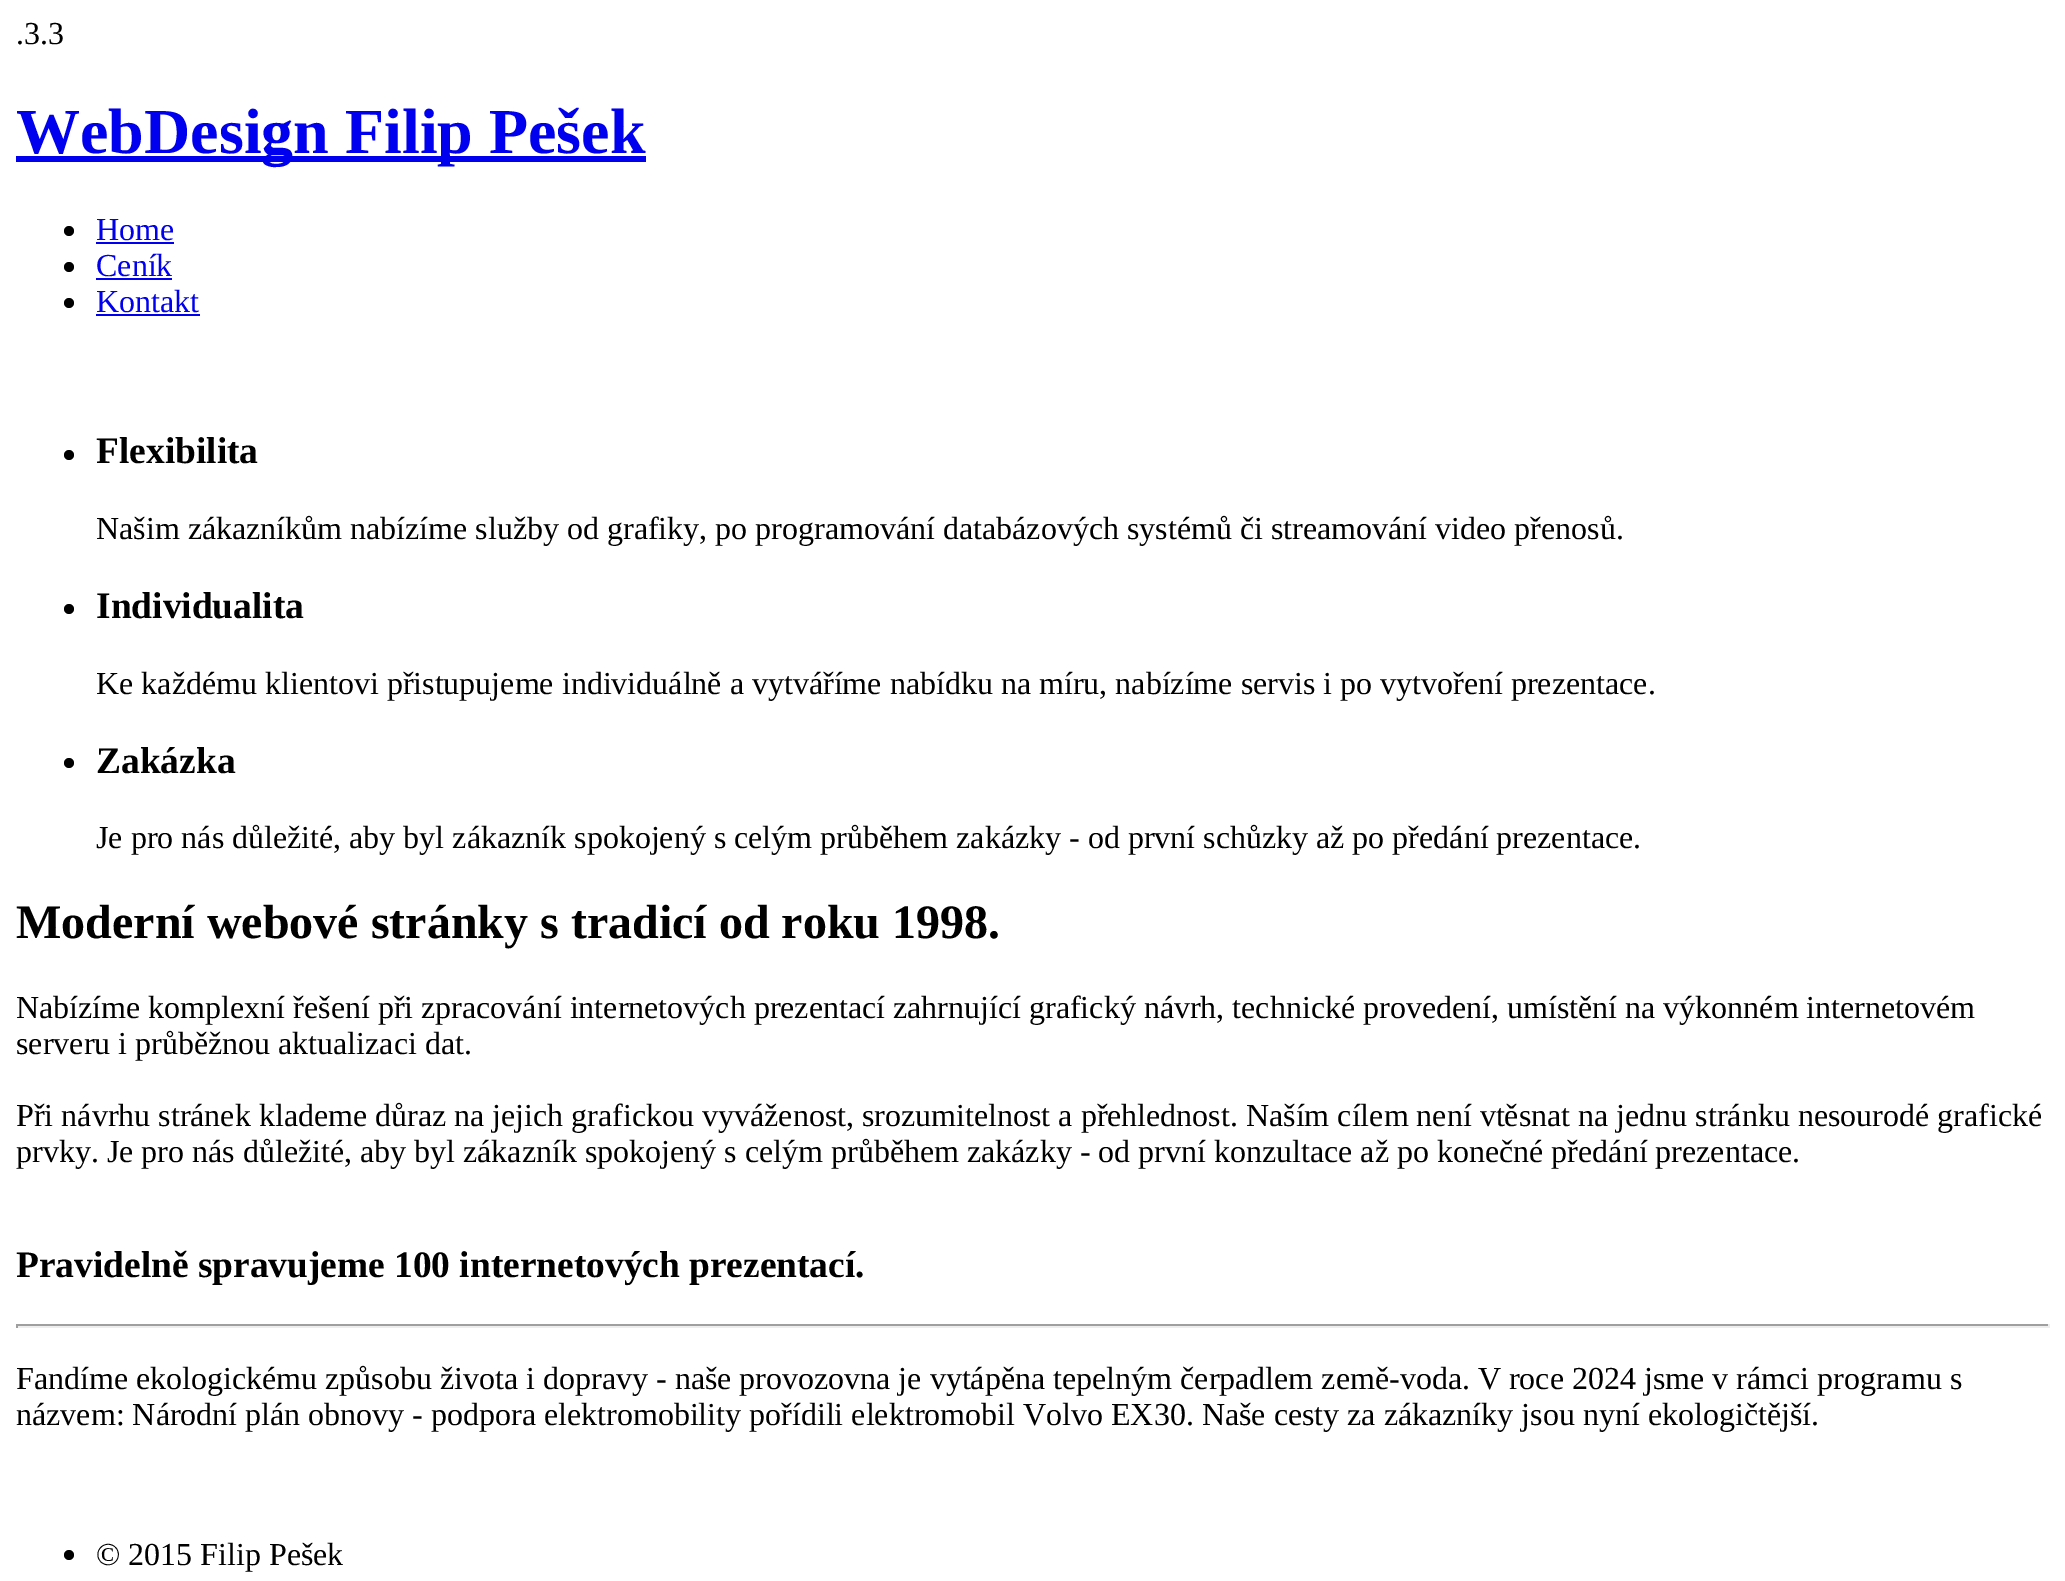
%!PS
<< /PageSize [2065 1581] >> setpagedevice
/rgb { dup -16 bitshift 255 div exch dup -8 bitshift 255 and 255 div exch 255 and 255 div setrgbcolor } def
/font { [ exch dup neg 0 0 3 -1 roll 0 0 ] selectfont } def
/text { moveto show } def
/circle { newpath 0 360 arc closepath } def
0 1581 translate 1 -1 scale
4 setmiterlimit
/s1 { /LiberationSerif-Regular 32 font 16#000000 rgb } def
/s2 { /LiberationSerif-Bold 64 font 16#0000EE rgb } def
/s3 { /LiberationSerif-Regular 32 font 16#0000EE rgb } def
/s4 { /LiberationSerif-Bold 37.4 font 16#000000 rgb } def
/s5 { /LiberationSerif-Bold 48 font 16#000000 rgb } def
16#FFFFFF rgb
0 0 2065 1581 rectfill
s1
(.3.3) 16 44 text
16#0000EE rgb
16 156 630 6 rectfill
s2
(WebDesign Filip Pešek) 16 153 text
16#000000 rgb
69 231 5 circle fill
s3
(Home) 96 240 text
96 242 78 2 rectfill
16#000000 rgb
69 267 5 circle fill
s3
(Ceník) 96 276 text
96 278 76 2 rectfill
16#000000 rgb
69 303 5 circle fill
s3
(Kontakt) 96 312 text
96 314 104 2 rectfill
16#000000 rgb
69 455 5 circle fill
s4
(Flexibilita) 96 463 text
s1
(Našim zákazníkům nabízíme služby od grafiky, po programování databázových systémů či streamování video přenosů.) 96 539 text
69 609 5 circle fill
s4
(Individualita) 96 618 text
s1
(Ke každému klientovi přistupujeme individuálně a vytváříme nabídku na míru, nabízíme servis i po vytvoření prezentace.) 96 694 text
69 763 5 circle fill
s4
(Zakázka) 96 773 text
s1
(Je pro nás důležité, aby byl zákazník spokojený s celým průběhem zakázky - od první schůzky až po předání prezentace.) 96 848 text
s5
(Moderní webové stránky s tradicí od roku 1998.) 16 938 text
s1
(Nabízíme komplexní řešení při zpracování internetových prezentací zahrnující grafický návrh, technické provedení, umístění na výkonném internetovém) 16 1018 text
(serveru i průběžnou aktualizaci dat.) 16 1054 text
(Při návrhu stránek klademe důraz na jejich grafickou vyváženost, srozumitelnost a přehlednost. Naším cílem není vtěsnat na jednu stránku nesourodé grafické) 16 1126 text
(prvky. Je pro nás důležité, aby byl zákazník spokojený s celým průběhem zakázky - od první konzultace až po konečné předání prezentace.) 16 1162 text
s4
(Pravidelně spravujeme 100 internetových prezentací.) 16 1277 text
16#9F9F9F rgb
16 1324 2034 2 rectfill
16#EEEEEE rgb
2048 1324 2 4 rectfill
16 1326 2034 2 rectfill
16#9F9F9F rgb
16 1324 2 4 rectfill
s1
(Fandíme ekologickému způsobu života i dopravy - naše provozovna je vytápěna tepelným čerpadlem země-voda. V roce 2024 jsme v rámci programu s) 16 1389 text
(názvem: Národní plán obnovy - podpora elektromobility pořídili elektromobil Volvo EX30. Naše cesty za zákazníky jsou nyní ekologičtější.) 16 1425 text
69 1555 5 circle fill
(© 2015 Filip Pešek) 96 1565 text
showpage
